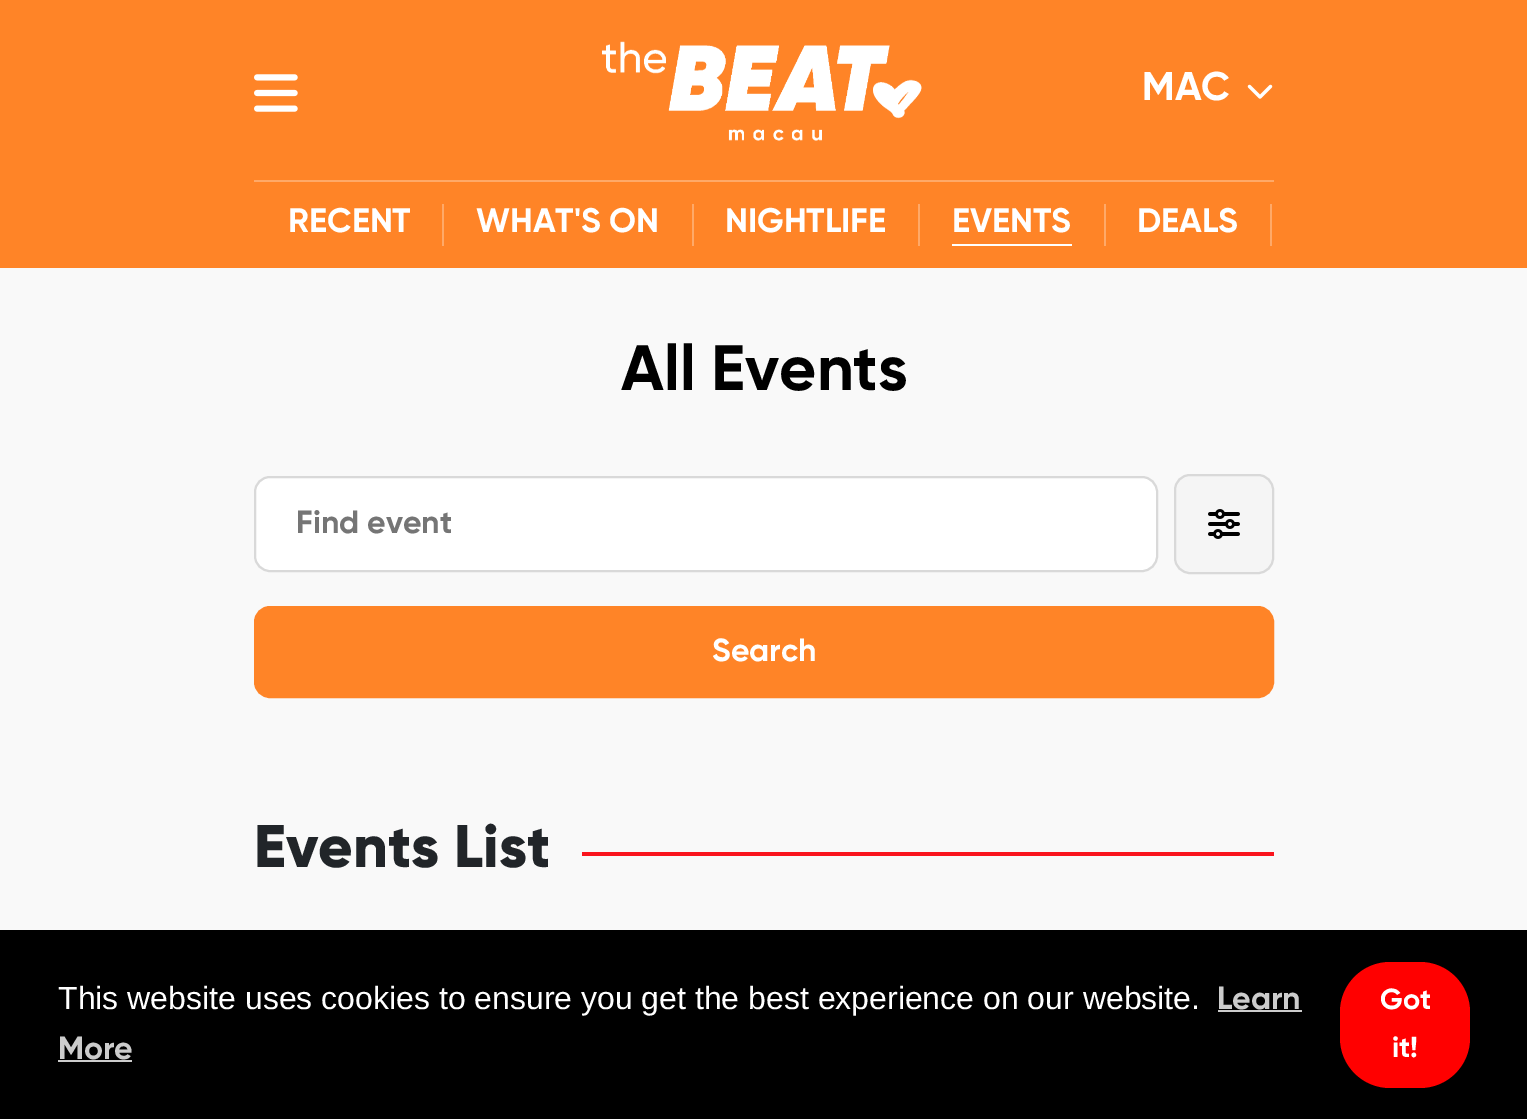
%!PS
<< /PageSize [1527 1119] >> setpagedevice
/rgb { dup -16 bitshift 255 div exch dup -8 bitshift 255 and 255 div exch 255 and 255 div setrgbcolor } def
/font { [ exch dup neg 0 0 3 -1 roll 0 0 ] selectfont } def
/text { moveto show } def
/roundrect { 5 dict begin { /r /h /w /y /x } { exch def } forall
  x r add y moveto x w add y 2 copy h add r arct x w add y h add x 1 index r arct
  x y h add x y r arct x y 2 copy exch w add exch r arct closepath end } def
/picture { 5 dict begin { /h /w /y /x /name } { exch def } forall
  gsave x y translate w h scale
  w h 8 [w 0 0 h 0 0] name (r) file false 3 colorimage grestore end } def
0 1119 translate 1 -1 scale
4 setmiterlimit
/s1 { /Gilroy-Bold 40 font 16#FFFFFF rgb } def
/s2 { /Gilroy-Bold 34 font 16#FFFFFF rgb } def
/s3 { /Gilroy-Bold 64 font 16#000000 rgb } def
/s4 { /Gilroy-Bold 32 font 16#757575 rgb } def
/s5 { /Gilroy-Bold 32 font 16#FFFFFF rgb } def
/s6 { /Gilroy-ExtraBold 60 font 16#212529 rgb } def
/s7 { /LiberationSans-Regular 32 font 16#FFFFFF rgb } def
/s8 { /Gilroy-Bold 32 font 16#CCCCCC rgb } def
/s9 { /Gilroy-Bold 29 font 16#FFFFFF rgb } def
16#F9F9F9 rgb
0 0 1527 1119 rectfill
16#FF8427 rgb
0 0 1527 268 rectfill
(pic1.raw) 254 74 44 38 picture
(pic2.raw) 602 41 320 100 picture
s1
(MAC) 1142 100 text
(pic3.raw) 1247 84 26 15 picture
16#FFA968 rgb
254 180 1020 2 rectfill
442 204 2 42 rectfill
s2
(RECENT) 288 232 text
16#FFA968 rgb
692 204 2 42 rectfill
s2
(WHAT'S ON) 476 232 text
16#FFA968 rgb
918 204 2 42 rectfill
s2
(NIGHTLIFE) 725 232 text
16#FFA968 rgb
1104 204 2 42 rectfill
16#FFFFFF rgb
952 244 120 2 rectfill
(EVENTS) 952 232 text
16#FFA968 rgb
1270 204 2 42 rectfill
s2
(DEALS) 1137 232 text
s3
(All Events) 621 390 text
16#FFFFFF rgb
255 477 902 94 15 roundrect gsave fill grestore
16#D9D9D9 rgb
2 setlinewidth
stroke
s4
(Find event) 296 533 text
16#F5F5F5 rgb
1175 475 98 98 15 roundrect gsave fill grestore
16#D9D9D9 rgb
stroke
(pic4.raw) 1208 509 32 30 picture
16#FF8427 rgb
255 607 1018 90 15 roundrect gsave fill grestore
stroke
s5
(Search) 712 661 text
s6
(Events List) 254 867 text
16#FA141D rgb
582 852 692 4 rectfill
16#000000 rgb
0 930 1527 189 rectfill
s7
(This website uses cookies to ensure you get the best experience on our website.) 58 1009 text
s8
(Learn) 1217 1009 text
1218 1010 84 2 rectfill
(More) 58 1059 text
58 1060 74 2 rectfill
16#FF0000 rgb
1340 962 130 126 50 roundrect fill
s9
(Got) 1380 1009 text
(it!) 1392 1057 text
showpage
